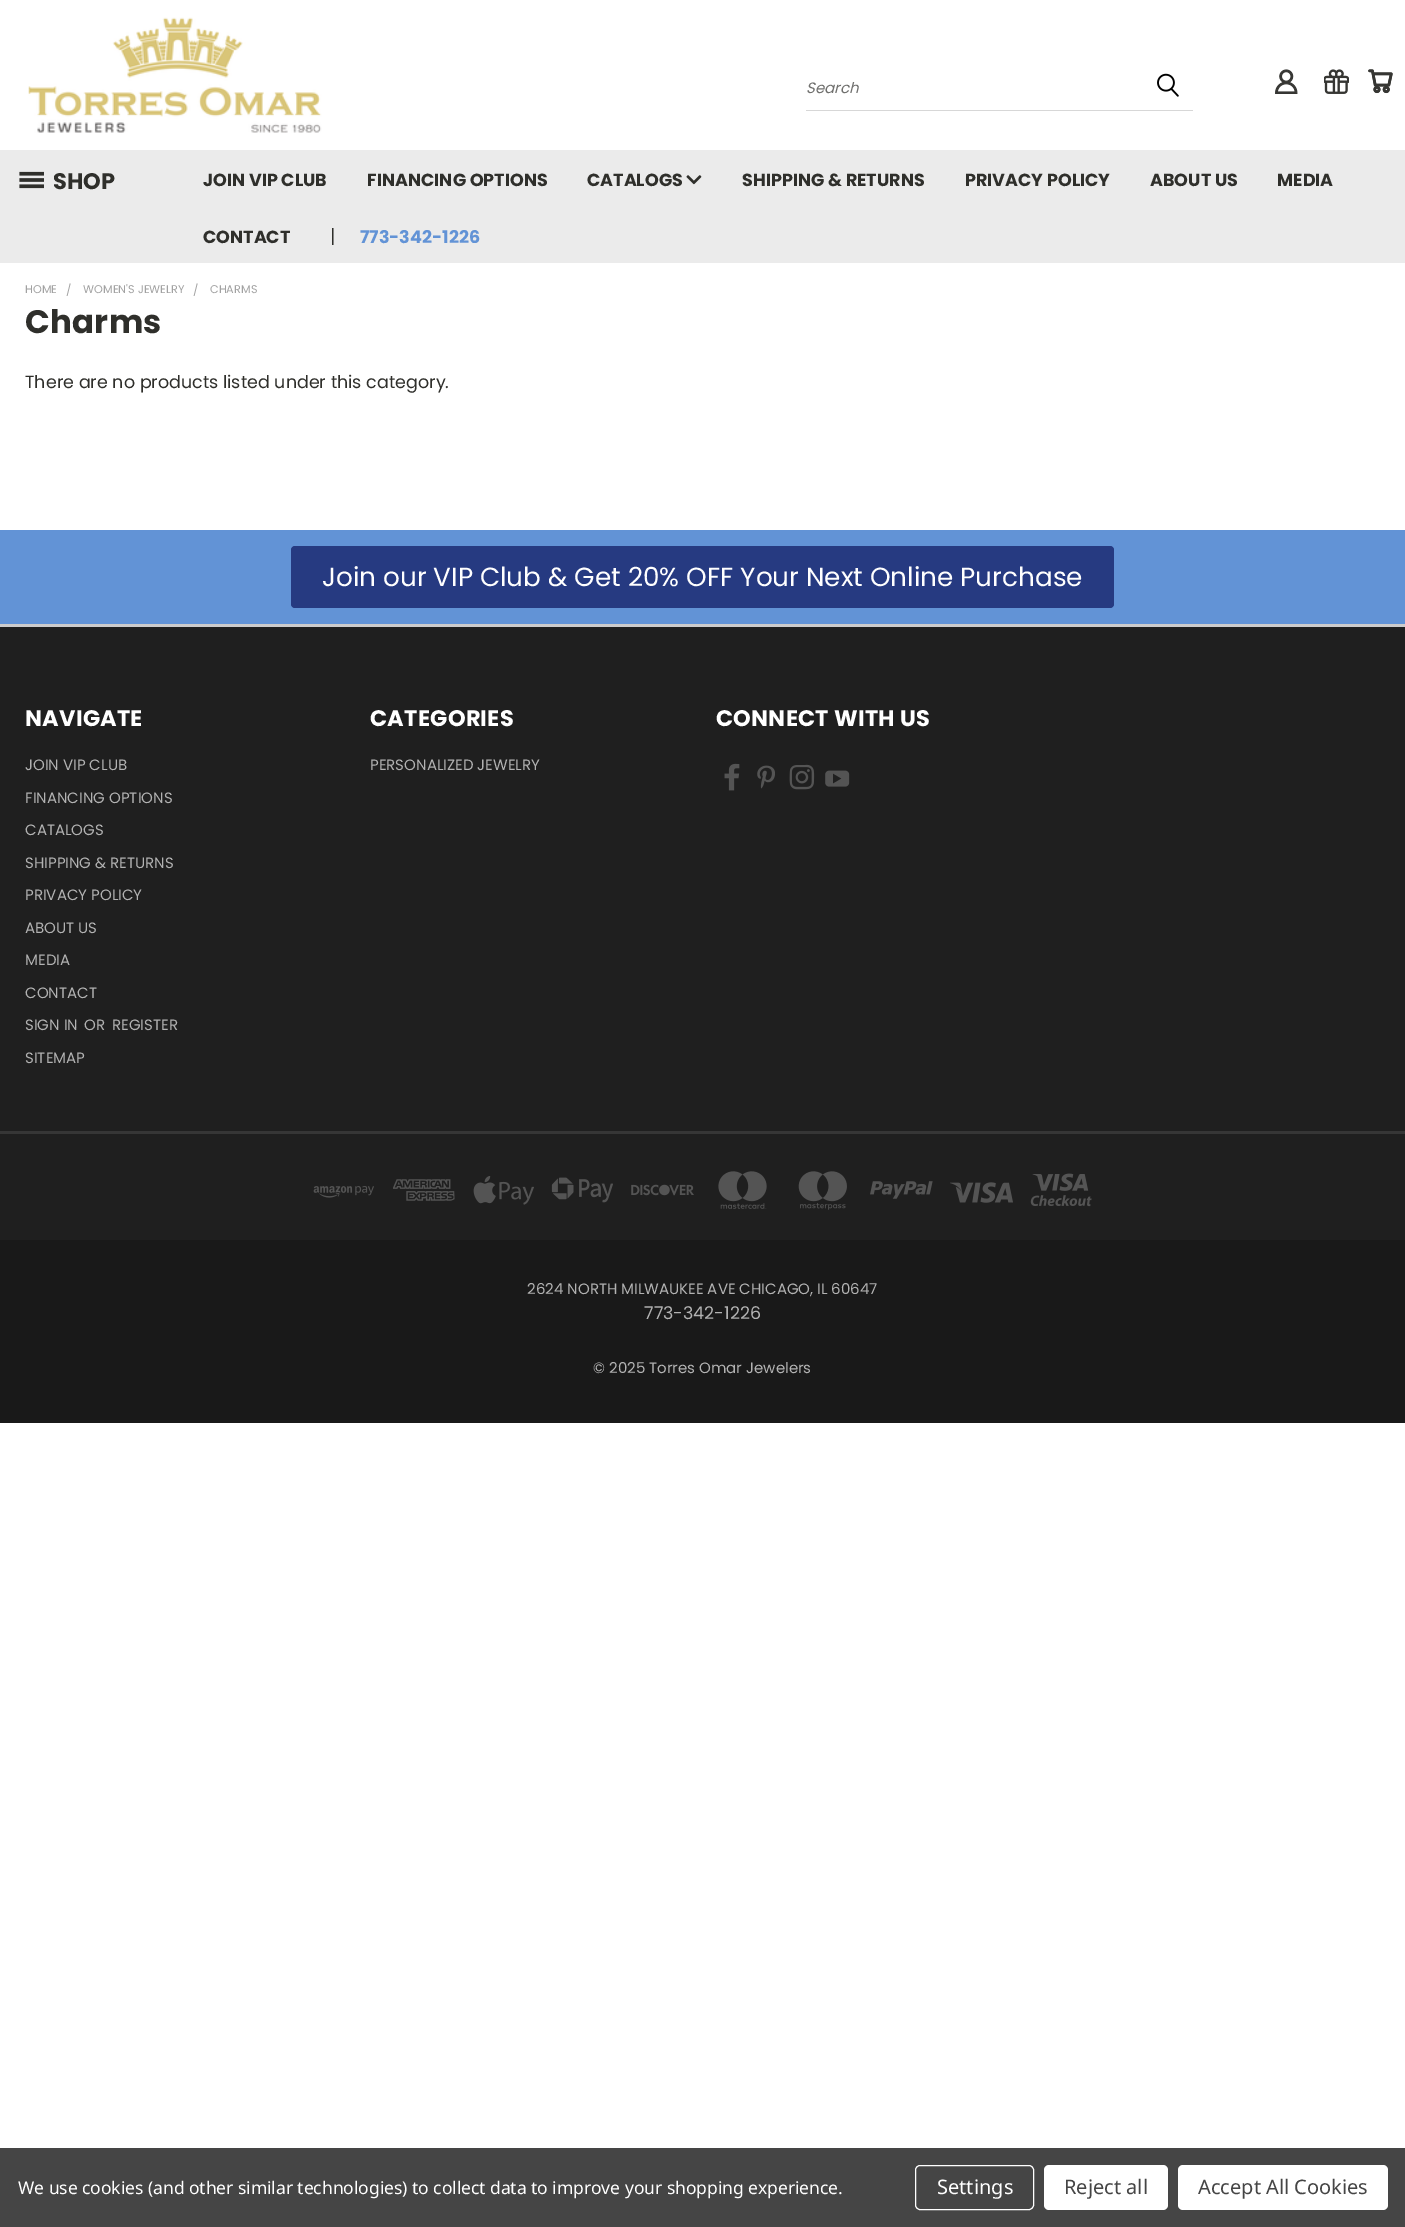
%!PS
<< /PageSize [1405 2227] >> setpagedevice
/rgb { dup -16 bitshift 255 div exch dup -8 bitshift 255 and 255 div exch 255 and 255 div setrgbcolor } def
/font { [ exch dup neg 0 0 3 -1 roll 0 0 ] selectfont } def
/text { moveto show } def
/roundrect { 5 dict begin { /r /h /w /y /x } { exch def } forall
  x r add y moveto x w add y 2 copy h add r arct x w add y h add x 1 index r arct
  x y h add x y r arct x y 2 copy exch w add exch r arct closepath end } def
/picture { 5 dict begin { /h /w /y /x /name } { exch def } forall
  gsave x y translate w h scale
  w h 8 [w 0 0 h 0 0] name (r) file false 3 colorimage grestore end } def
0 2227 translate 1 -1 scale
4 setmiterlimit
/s1 { /Poppins-Italic 15 font 16#70706E rgb } def
/s2 { /Poppins-Bold 22.5 font 16#2F2F2B rgb } def
/s3 { /Poppins-Bold 17.5 font 16#2F2F2B rgb } def
/s4 { /Poppins-Regular 19 font 16#2F2F2B rgb } def
/s5 { /Poppins-Bold 17.5 font 16#6293D6 rgb } def
/s6 { /Poppins-Regular 11.25 font 16#A2A2A2 rgb } def
/s7 { /Poppins-Regular 17.5 font 16#2F2F2B rgb } def
/s8 { /Poppins-Regular 26.25 font 16#FFFFFF rgb } def
/s9 { /Poppins-Regular 15 font 16#B2B2B2 rgb } def
/s10 { /Poppins-Regular 17.5 font 16#B2B2B2 rgb } def
/s11 { /NotoSans-Regular 20 font 16#FFFFFF rgb } def
/s12 { /NotoSans-Regular 20 font 16#454545 rgb } def
16#FFFFFF rgb
0 0 1405 2227 rectfill
(pic1.raw) 28 17 294 116 picture
16#D7D7D7 rgb
806 110 387 1 rectfill
s1
(Search) 806 93 text
(pic2.raw) 1157 73 22 24 picture
(pic3.raw) 1275 69 23 25 picture
(pic4.raw) 1324 69 25 25 picture
(pic5.raw) 1368 69 25 25 picture
16#EBEBEB rgb
0 150 1405 113 rectfill
(pic6.raw) 19 171 25 18 picture
s2
(SHOP) 53 189 text
s3
(JOIN VIP CLUB) 203 186 text
(FINANCING OPTIONS) 367 186 text
(CATALOGS) 587 186 text
(pic7.raw) 686 175 16 10 picture
(SHIPPING & RETURNS) 742 186 text
(PRIVACY POLICY) 965 186 text
(ABOUT US) 1150 186 text
(MEDIA) 1277 186 text
(CONTACT) 203 243 text
s4
(|) 330 243 text
s5
(773-342-1226) 360 243 text
s6
(HOME) 25 293 text
(/) 66 294 text
(WOMEN'S JEWELRY) 83 293 text
(/) 193 294 text
(CHARMS) 210 293 text
/Poppins-Bold 32.5 font
16#2F2F2B rgb
25 333 moveto 0.25 0 (Charms) ashow
s7
(There are no products listed under this category.) 25 388 text
16#6293D6 rgb
0 530 1405 94 rectfill
16#263A81 rgb
291 546 823 62 4 roundrect fill
s8
(Join our VIP Club & Get 20% OFF Your Next Online Purchase) 322 586 text
16#1F1F1F rgb
0 627 1405 613 rectfill
16#CDCCCC rgb
0 624 1405 3 rectfill
/Poppins-Bold 22.5 font
16#FFFFFF rgb
25 726 moveto 0.25 0 (NAVIGATE) ashow
s9
(JOIN VIP CLUB) 25 770 text
(FINANCING OPTIONS) 25 803 text
(CATALOGS) 25 835 text
(SHIPPING & RETURNS) 25 868 text
(PRIVACY POLICY) 25 900 text
(ABOUT US) 25 933 text
(MEDIA) 25 965 text
(CONTACT) 25 998 text
(SIGN IN) 25 1030 text
(OR) 84 1030 text
(REGISTER) 112 1030 text
(SITEMAP) 25 1063 text
/Poppins-Bold 22.5 font
16#FFFFFF rgb
370 726 moveto 0.25 0 (CATEGORIES) ashow
s9
(PERSONALIZED JEWELRY) 370 770 text
/Poppins-Bold 22.5 font
16#FFFFFF rgb
716 726 moveto 0.25 0 (CONNECT WITH US) ashow
(pic8.raw) 724 763 16 28 picture
(pic9.raw) 757 765 18 24 picture
(pic10.raw) 789 764 26 26 picture
(pic11.raw) 825 770 25 17 picture
16#363636 rgb
0 1131 1405 3 rectfill
(pic12.raw) 313 1186 61 12 picture
(pic13.raw) 393 1179 62 22 picture
(pic14.raw) 473 1176 61 29 picture
(pic15.raw) 551 1177 62 26 picture
(pic16.raw) 631 1184 63 12 picture
(pic17.raw) 718 1171 49 38 picture
(pic18.raw) 798 1171 49 39 picture
(pic19.raw) 870 1181 63 18 picture
(pic20.raw) 950 1182 63 21 picture
(pic21.raw) 1030 1173 62 34 picture
16#191919 rgb
0 1240 1405 183 rectfill
s9
(2624 NORTH MILWAUKEE AVE CHICAGO, IL 60647) 527 1294 text
s10
(773-342-1226) 644 1319 text
s9
(© 2025 Torres Omar Jewelers) 593 1373 text
16#454545 rgb
0 2148 1405 79 rectfill
/NotoSans-Regular 17.5 font
16#FFFFFF rgb
18 2194 moveto -0.05 0 (We use cookies \(and other similar technologies\) to collect data to improve your shopping experience.) ashow
915.5 2165.5 118 44 4.5 roundrect stroke
s11
(Settings) 937 2194 text
1044 2165 124 45 5 roundrect fill
s12
(Reject all) 1064 2194 text
16#FFFFFF rgb
1178 2165 210 45 5 roundrect fill
s12
(Accept All Cookies) 1198 2194 text
showpage
